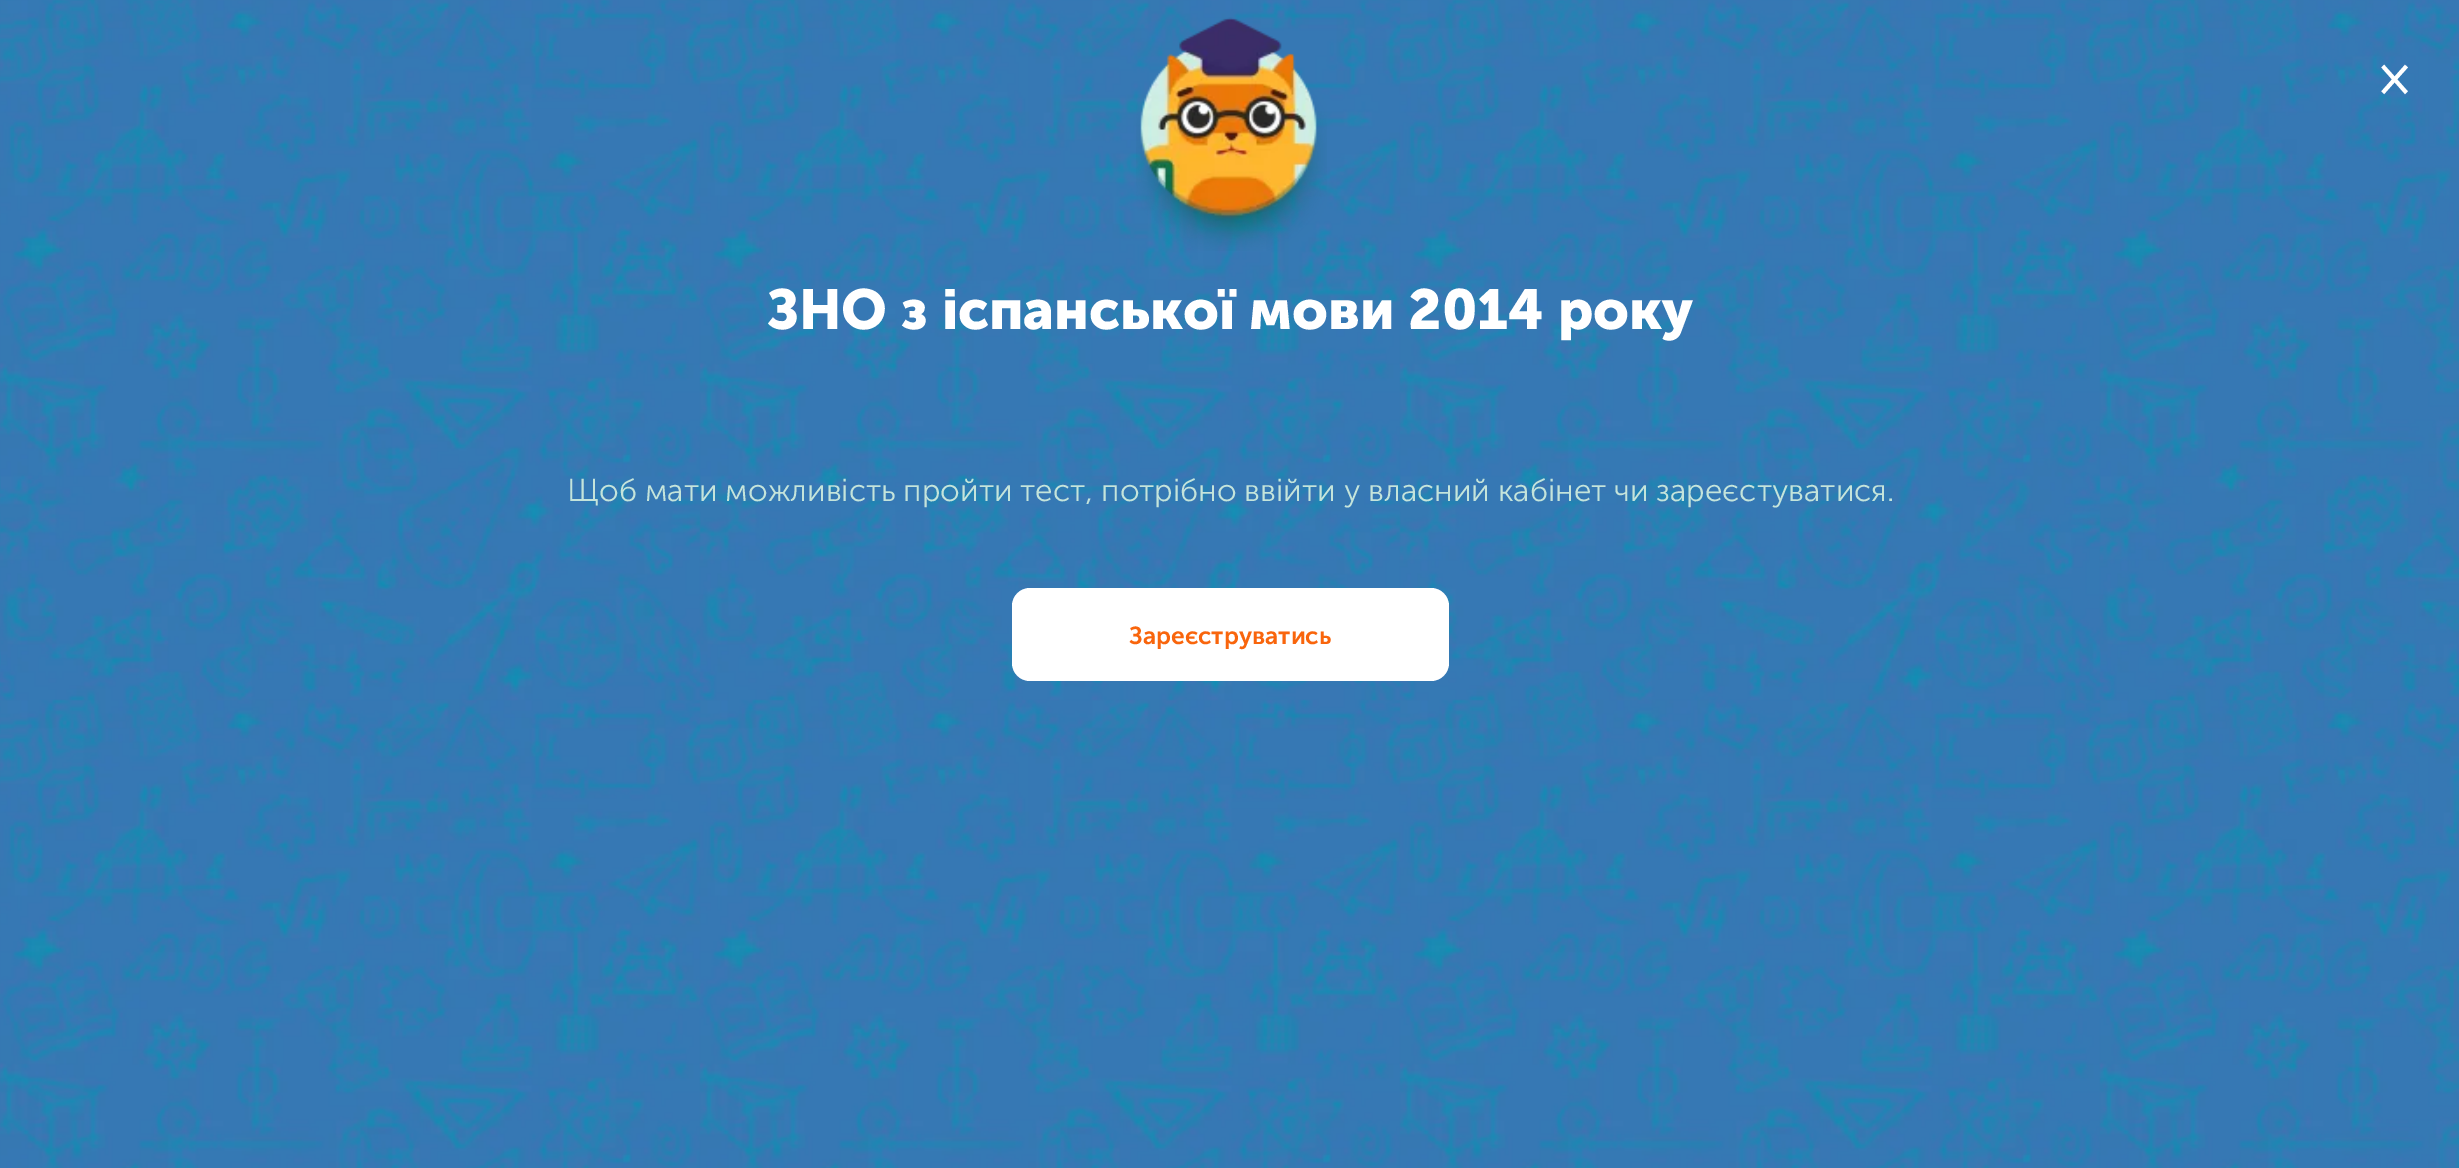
%!PS
<< /PageSize [2459 1168] >> setpagedevice
/rgb { dup -16 bitshift 255 div exch dup -8 bitshift 255 and 255 div exch 255 and 255 div setrgbcolor } def
/font { [ exch dup neg 0 0 3 -1 roll 0 0 ] selectfont } def
/text { moveto show } def
/roundrect { 5 dict begin { /r /h /w /y /x } { exch def } forall
  x r add y moveto x w add y 2 copy h add r arct x w add y h add x 1 index r arct
  x y h add x y r arct x y 2 copy exch w add exch r arct closepath end } def
/picture { 5 dict begin { /h /w /y /x /name } { exch def } forall
  gsave x y translate w h scale
  w h 8 [w 0 0 h 0 0] name (r) file false 3 colorimage grestore end } def
0 1168 translate 1 -1 scale
4 setmiterlimit
/s1 { /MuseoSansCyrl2-Bold 49 font 16#FFFFFF rgb } def
/s2 { /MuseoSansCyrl-Bold 56 font 16#FFFFFF rgb } def
/s3 { /MuseoSansCyrl-Light 31.5 font 16#C4E4DB rgb } def
/s4 { /MuseoSansCyrl-SemiBold 24.5 font 16#F9650C rgb } def
16#FFFFFF rgb
0 0 2459 1168 rectfill
(pic1.raw) 0 0 2459 1168 picture
s1
(×) 2380 94 text
(pic2.raw) 1136 17 191 234 picture
s2
(ЗНО з іспанської мови 2014 року) 767 329 text
s3
(Щоб мати можливість пройти тест, потрібно ввійти у власний кабінет чи зареєстуватися.) 567 501 text
16#FFFFFF rgb
1012 588 437 93 18 roundrect fill
s4
(Зареєструватись) 1129 644 text
showpage
